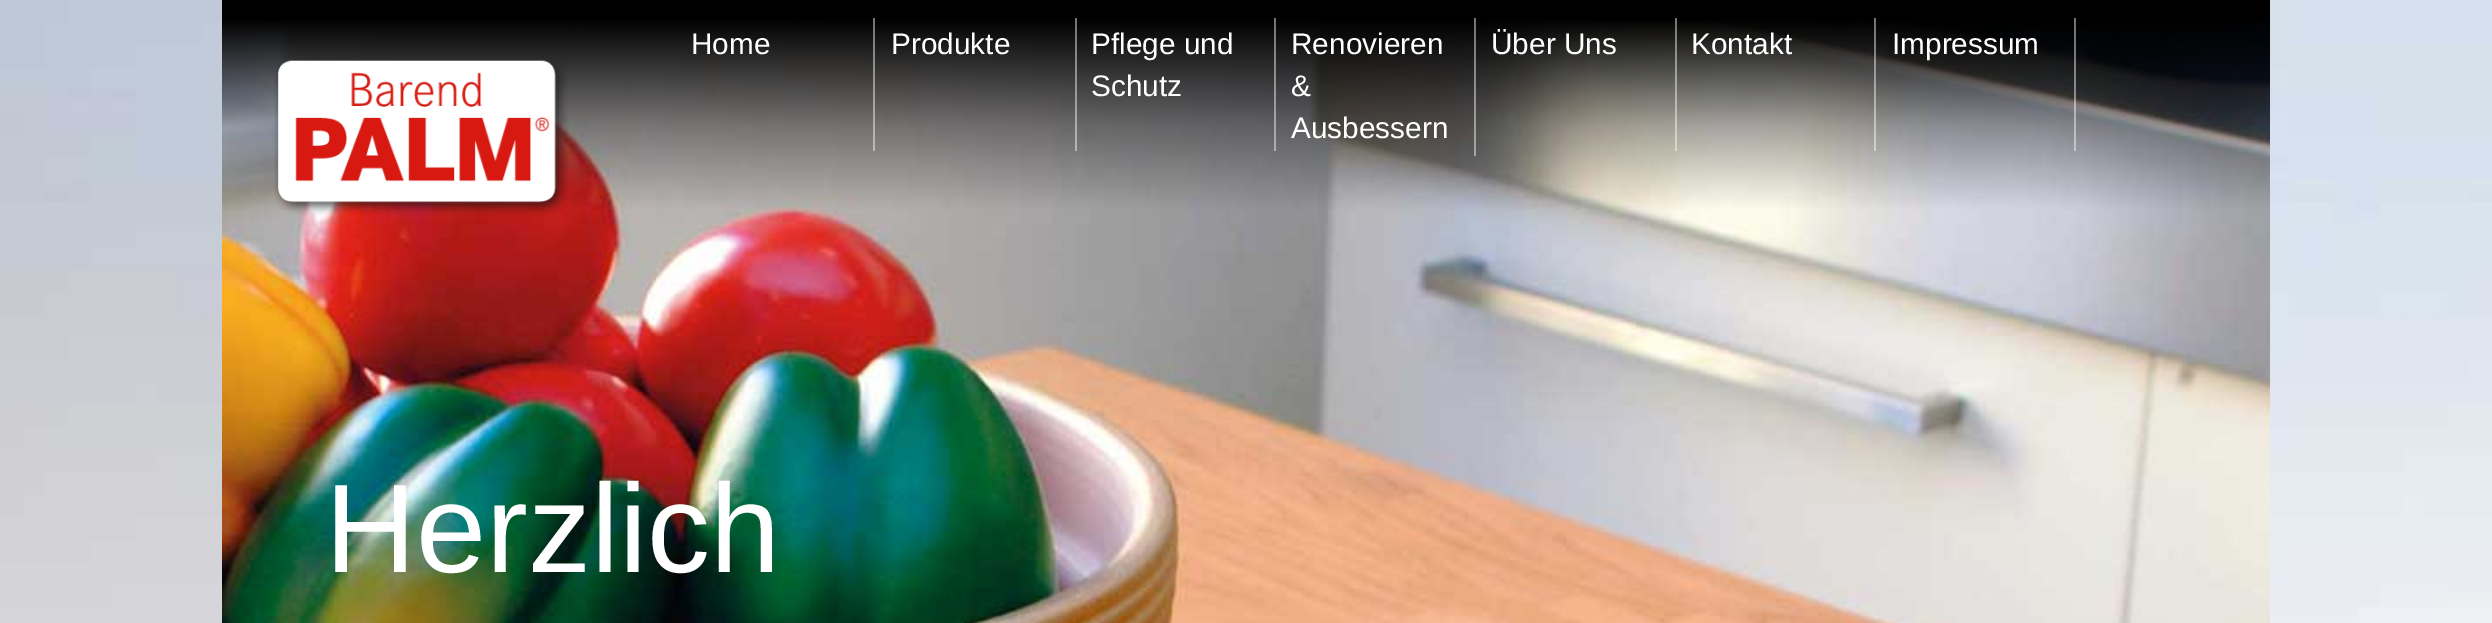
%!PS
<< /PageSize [2492 623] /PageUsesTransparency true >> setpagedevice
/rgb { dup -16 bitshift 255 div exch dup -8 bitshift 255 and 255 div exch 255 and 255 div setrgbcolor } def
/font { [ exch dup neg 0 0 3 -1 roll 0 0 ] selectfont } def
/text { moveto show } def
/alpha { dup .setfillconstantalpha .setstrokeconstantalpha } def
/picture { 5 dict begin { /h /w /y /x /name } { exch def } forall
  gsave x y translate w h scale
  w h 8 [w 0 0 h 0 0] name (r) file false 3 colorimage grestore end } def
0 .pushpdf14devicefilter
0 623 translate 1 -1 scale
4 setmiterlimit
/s1 { /LiberationSans-Regular 29.75 font 16#FFFFFF rgb } def
/s2 { /LiberationSans-Regular 126 font 16#FFFFFF rgb } def
16#FFFFFF rgb
0 0 2492 623 rectfill
(pic1.raw) 0 0 2492 623 picture
(pic3.raw) 222 0 2048 623 picture
(pic2.raw) 274 60 294 155 picture
0.45 alpha
873 18 2 133 rectfill
1 alpha
s1
(Home) 691 54 text
0.45 alpha
1075 18 2 133 rectfill
1 alpha
(Produkte) 891 54 text
0.45 alpha
1274 18 2 133 rectfill
1 alpha
(Pflege und) 1091 54 text
(Schutz) 1091 96 text
0.45 alpha
1474 18 2 138 rectfill
1 alpha
(Renovieren) 1291 54 text
(&) 1291 96 text
(Ausbessern) 1291 138 text
0.45 alpha
1675 18 2 133 rectfill
1 alpha
(Über Uns) 1491 54 text
0.45 alpha
1874 18 2 133 rectfill
1 alpha
(Kontakt) 1691 54 text
0.45 alpha
2074 18 2 133 rectfill
1 alpha
(Impressum) 1892 54 text
s2
(Herzlich) 325 572 text
.poppdf14devicefilter showpage
